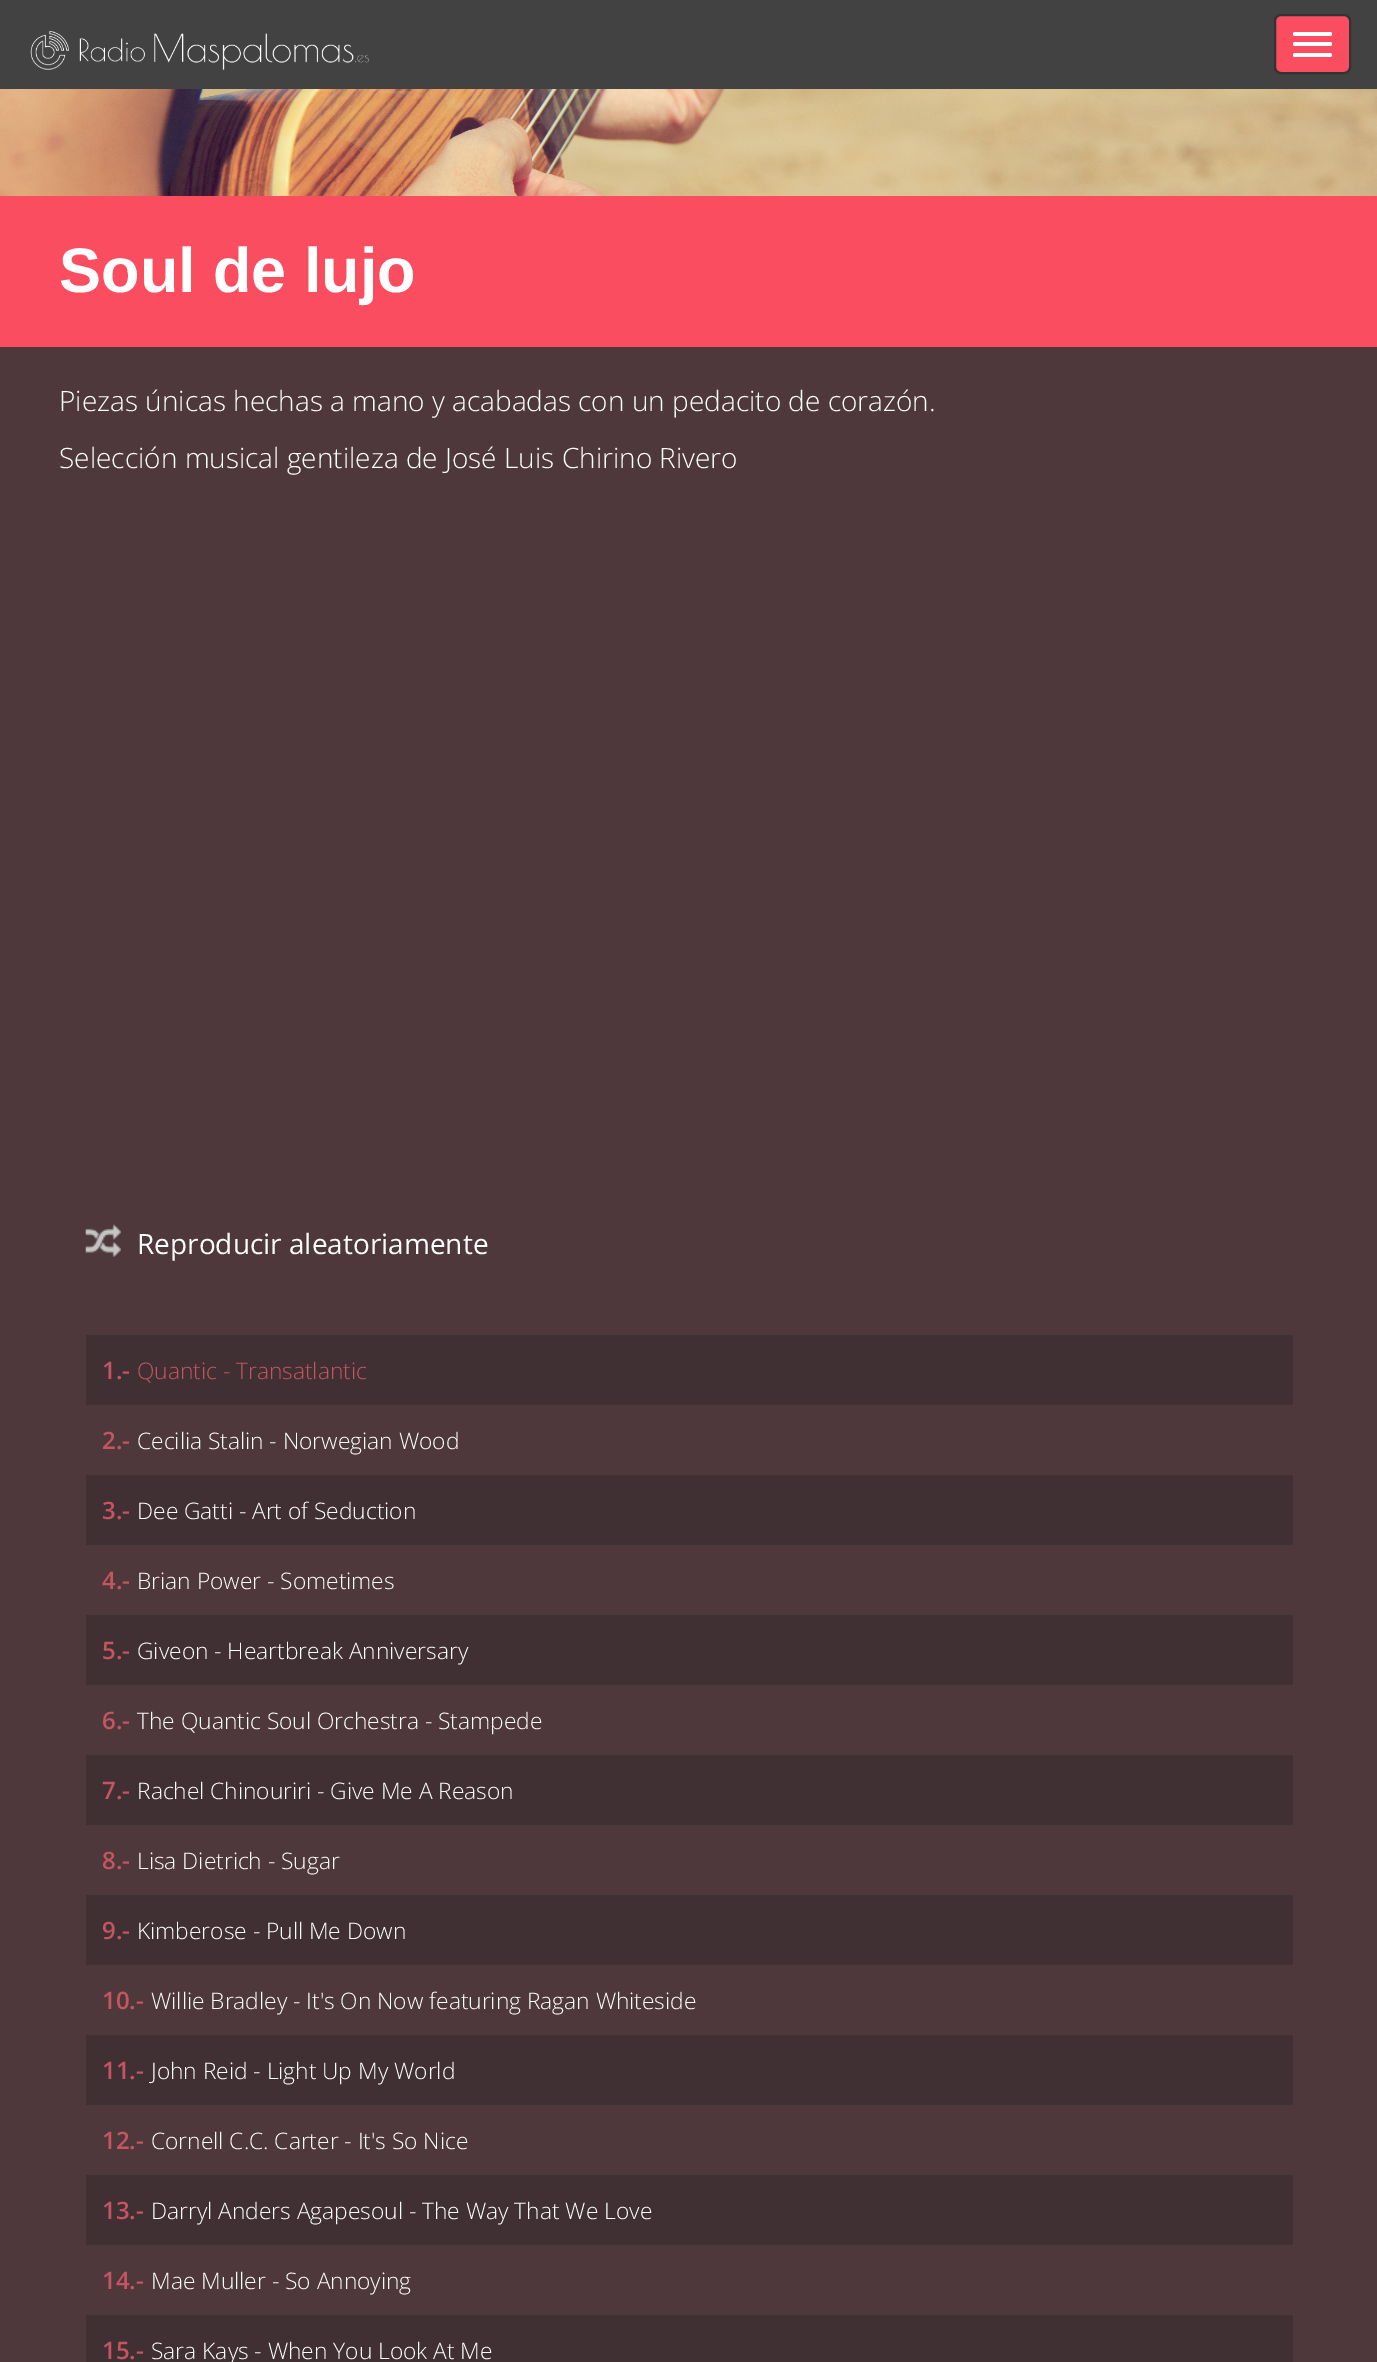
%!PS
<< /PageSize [1377 2362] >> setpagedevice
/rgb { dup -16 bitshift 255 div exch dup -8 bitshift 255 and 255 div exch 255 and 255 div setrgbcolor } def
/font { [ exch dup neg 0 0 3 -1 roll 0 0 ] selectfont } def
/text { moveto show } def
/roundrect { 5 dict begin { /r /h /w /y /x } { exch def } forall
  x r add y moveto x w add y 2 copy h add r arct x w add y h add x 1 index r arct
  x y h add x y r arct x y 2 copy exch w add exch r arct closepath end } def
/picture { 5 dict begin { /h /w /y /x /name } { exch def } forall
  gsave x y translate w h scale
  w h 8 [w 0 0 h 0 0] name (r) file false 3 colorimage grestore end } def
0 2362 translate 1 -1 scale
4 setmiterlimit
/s1 { /LiberationSans-Bold 63 font 16#FFFFFF rgb } def
/s2 { /OpenSans-Light 28 font 16#FFFFFF rgb } def
/s3 { /OpenSans-Regular 28 font 16#FFFFFF rgb } def
/s4 { /OpenSans-SemiBold 24 font 16#C55561 rgb } def
/s5 { /OpenSans-Light 22.75 font 16#C55561 rgb } def
/s6 { /OpenSans-Light 22.75 font 16#FFFFFF rgb } def
16#4E383B rgb
0 0 1377 2362 rectfill
16#424242 rgb
0 0 1377 89 rectfill
(pic1.raw) 30 31 340 39 picture
16#FA4D60 rgb
1275 15 75 58 6 roundrect gsave fill grestore
16#333333 rgb
2 setlinewidth
stroke
16#FFFFFF rgb
1293 32 39 4 2 roundrect fill
1293 42 39 4 2 roundrect fill
1293 53 39 4 2 roundrect fill
(pic2.raw) 0 89 1377 107 picture
16#FA4D60 rgb
0 196 1377 151 rectfill
s1
(Soul de lujo) 59 292 text
s2
(Piezas únicas hechas a mano y acabadas con un pedacito de corazón.) 59 411 text
(Selección musical gentileza de José Luis Chirino Rivero) 59 468 text
(pic3.raw) 85 1224 36 33 picture
s3
(Reproducir aleatoriamente) 137 1254 text
16#403033 rgb
86 1335 1207 70 rectfill
s4
(1.-) 102 1379 text
s5
(Quantic - Transatlantic) 137 1379 text
s4
(2.-) 102 1449 text
s6
(Cecilia Stalin - Norwegian Wood) 137 1449 text
16#403033 rgb
86 1475 1207 70 rectfill
s4
(3.-) 102 1519 text
s6
(Dee Gatti - Art of Seduction) 137 1519 text
s4
(4.-) 102 1589 text
s6
(Brian Power - Sometimes) 137 1589 text
16#403033 rgb
86 1615 1207 70 rectfill
s4
(5.-) 102 1659 text
s6
(Giveon - Heartbreak Anniversary) 137 1659 text
s4
(6.-) 102 1729 text
s6
(The Quantic Soul Orchestra - Stampede) 137 1729 text
16#403033 rgb
86 1755 1207 70 rectfill
s4
(7.-) 102 1799 text
s6
(Rachel Chinouriri - Give Me A Reason) 137 1799 text
s4
(8.-) 102 1869 text
s6
(Lisa Dietrich - Sugar) 137 1869 text
16#403033 rgb
86 1895 1207 70 rectfill
s4
(9.-) 102 1939 text
s6
(Kimberose - Pull Me Down) 137 1939 text
s4
(10.-) 102 2009 text
s6
(Willie Bradley - It's On Now featuring Ragan Whiteside) 151 2009 text
16#403033 rgb
86 2035 1207 70 rectfill
s4
(11.-) 102 2079 text
s6
(John Reid - Light Up My World) 151 2079 text
s4
(12.-) 102 2149 text
s6
(Cornell C.C. Carter - It's So Nice) 151 2149 text
16#403033 rgb
86 2175 1207 70 rectfill
s4
(13.-) 102 2219 text
s6
(Darryl Anders Agapesoul - The Way That We Love) 151 2219 text
s4
(14.-) 102 2289 text
s6
(Mae Muller - So Annoying) 151 2289 text
16#403033 rgb
86 2315 1207 47 rectfill
s4
(15.-) 102 2359 text
s6
(Sara Kays - When You Look At Me) 151 2359 text
showpage
